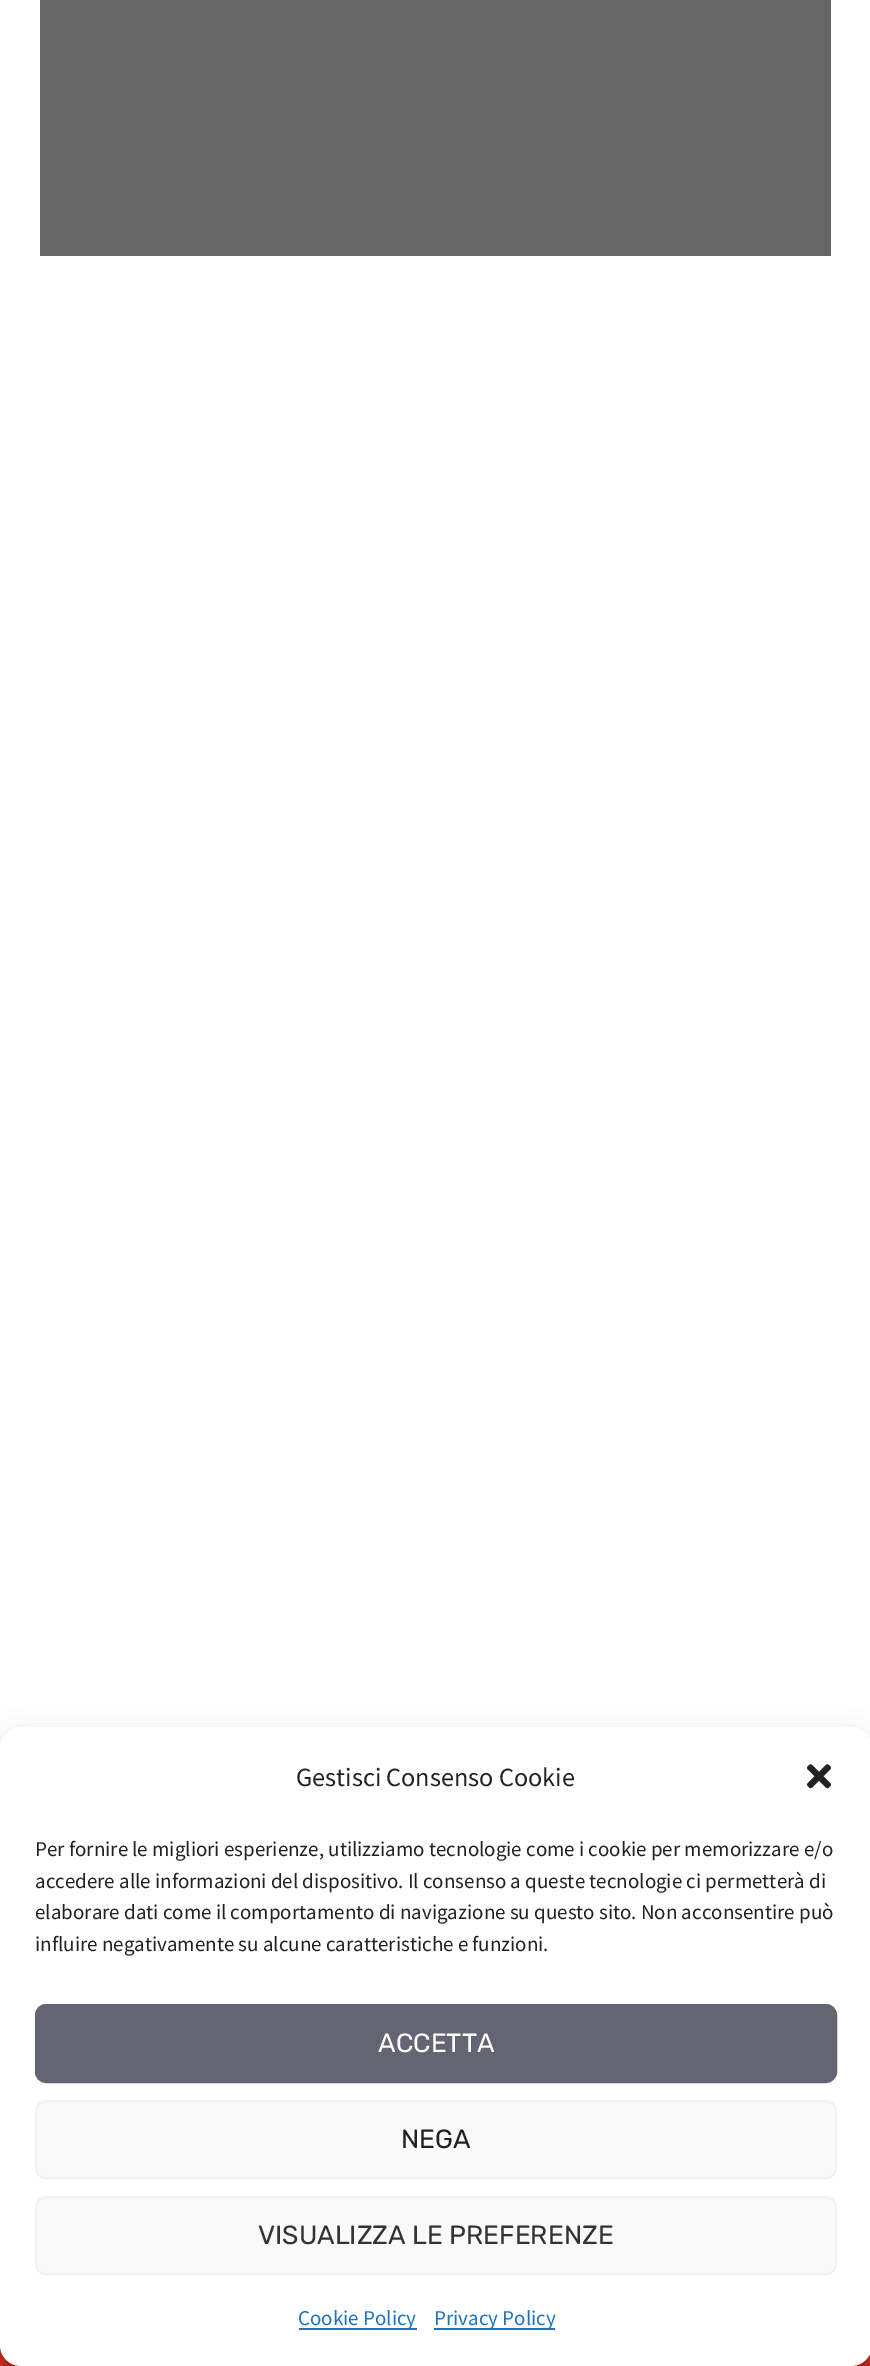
%!PS
<< /PageSize [870 2366] /PageUsesTransparency true >> setpagedevice
/rgb { dup -16 bitshift 255 div exch dup -8 bitshift 255 and 255 div exch 255 and 255 div setrgbcolor } def
/font { [ exch dup neg 0 0 3 -1 roll 0 0 ] selectfont } def
/text { moveto show } def
/alpha { dup .setfillconstantalpha .setstrokeconstantalpha } def
/roundrect { 5 dict begin { /r /h /w /y /x } { exch def } forall
  x r add y moveto x w add y 2 copy h add r arct x w add y h add x 1 index r arct
  x y h add x y r arct x y 2 copy exch w add exch r arct closepath end } def
/shadow { 12 dict begin { /a /b /q /h /w /y /x } { exch def } forall gsave /was 0 def
  9 -2 -9 { dup b mul 4 div /e exch def 1 sub .425 mul 2.718 exch exp 1 add a .99 .min exch div /now exch def
    1 1 now sub 1 was sub div sub alpha /was now def
    w h .min e 2 mul add 0 gt { x e sub y e sub w e 2 mul add h e 2 mul add
      q e add b .6 mul add w h .min 2 div e add .min 0 .max roundrect fill } if } for grestore end } def
/picture { 5 dict begin { /h /w /y /x /name } { exch def } forall
  gsave x y translate w h scale
  w h 8 [w 0 0 h 0 0] name (r) file false 3 colorimage grestore end } def
0 .pushpdf14devicefilter
0 2366 translate 1 -1 scale
4 setmiterlimit
/s1 { /SourceSansPro-Regular 26.25 font 16#222222 rgb } def
/s2 { /SourceSansPro-Regular 21 font 16#222222 rgb } def
/s3 { /Rubik-Regular 26.25 font 16#FFFFFF rgb } def
/s4 { /Rubik-Regular 26.25 font 16#222222 rgb } def
/s5 { /Rubik-Regular 26.25 font 16#333333 rgb } def
/s6 { /SourceSansPro-Regular 21 font 16#1E73BE rgb } def
16#FFFFFF rgb
0 0 870 2366 rectfill
16#666666 rgb
40 0 791 256 rectfill
16#E43222 rgb
0 2345 870 21 rectfill
16#000000 rgb
0 1738 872 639 21 5 0.23 shadow
0 1745 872 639 21 17.5 0.19 shadow
16#FFFFFF rgb
0 1727 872 639 21 roundrect fill
s1
(Gestisci Consenso Cookie) 296 1786 text
(pic1.raw) 807 1764 24 25 picture
s2
(Per fornire le migliori esperienze, utilizziamo tecnologie come i cookie per memorizzare e/o) 35 1856 text
(accedere alle informazioni del dispositivo. Il consenso a queste tecnologie ci permetterà di) 35 1888 text
(elaborare dati come il comportamento di navigazione su questo sito. Non acconsentire può) 35 1919 text
(influire negativamente su alcune caratteristiche e funzioni.) 35 1951 text
16#646473 rgb
36 2005 800 77 10 roundrect gsave fill grestore
2 setlinewidth
stroke
s3
(ACCETTA) 378 2052 text
16#F9F9F9 rgb
36 2101 800 77 10 roundrect gsave fill grestore
16#F2F2F2 rgb
stroke
s4
(NEGA) 401 2148 text
16#F9F9F9 rgb
36 2197 800 77 10 roundrect gsave fill grestore
16#F2F2F2 rgb
stroke
s5
(VISUALIZZA LE PREFERENZE) 258 2244 text
16#1E73BE rgb
299 2328 118 2 rectfill
s6
(Cookie Policy) 298 2325 text
434 2328 121 2 rectfill
(Privacy Policy) 434 2325 text
.poppdf14devicefilter showpage
